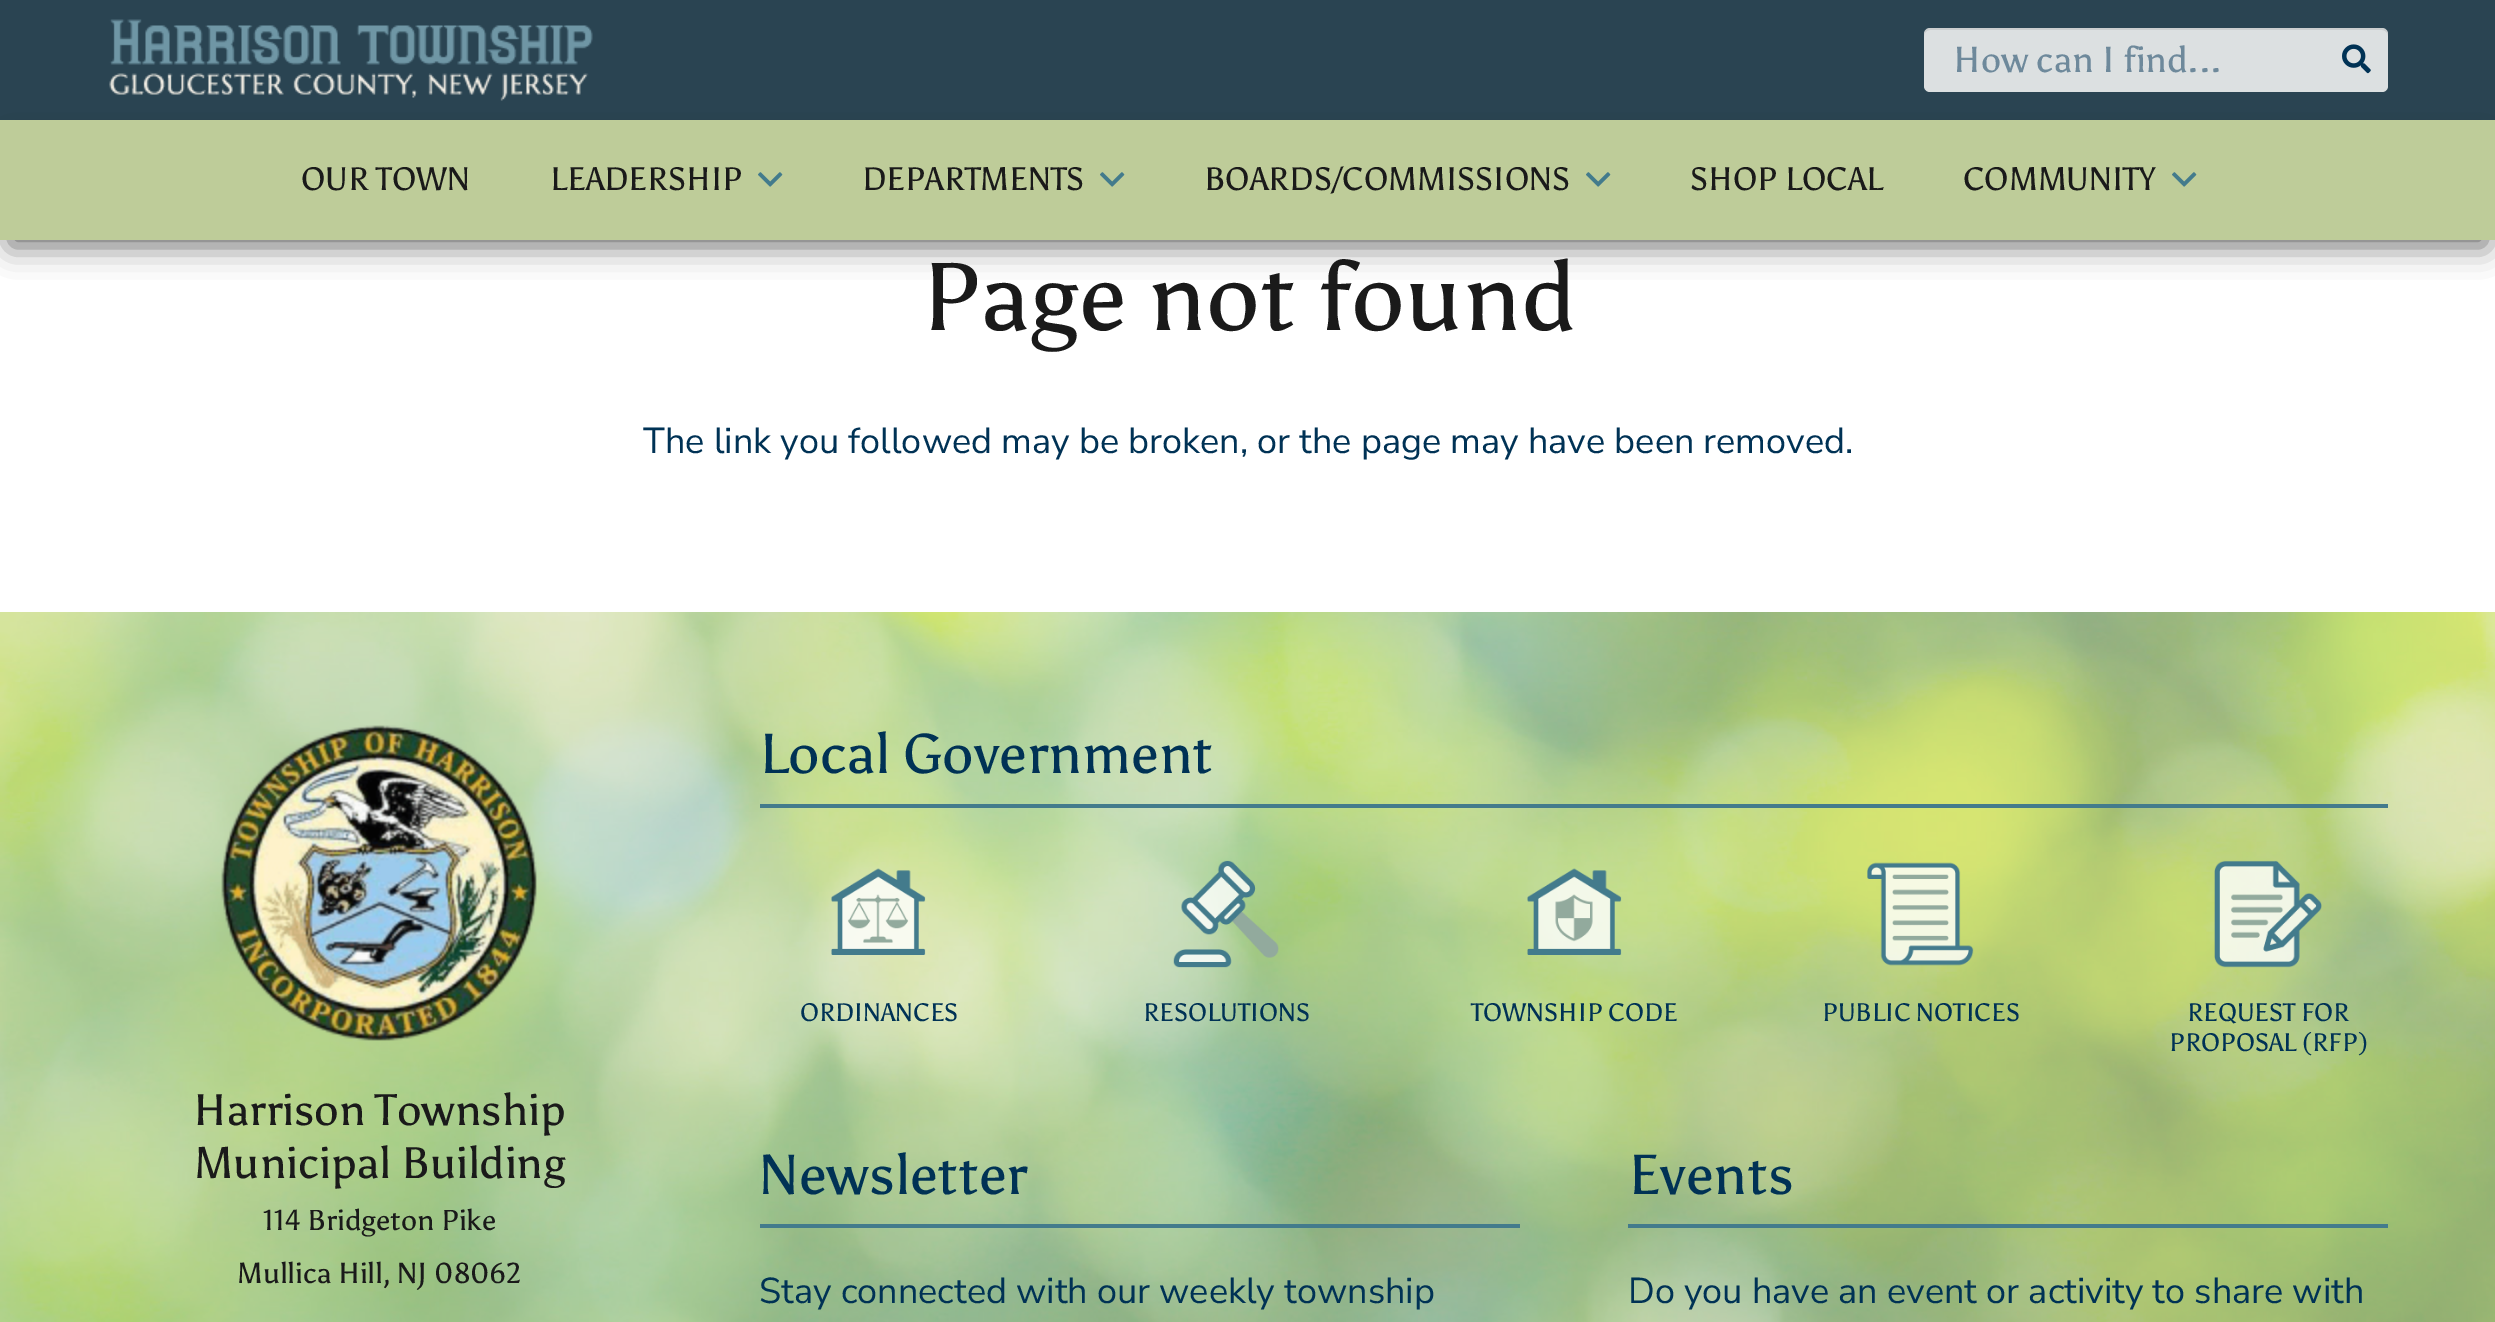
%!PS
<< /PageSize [2495 1322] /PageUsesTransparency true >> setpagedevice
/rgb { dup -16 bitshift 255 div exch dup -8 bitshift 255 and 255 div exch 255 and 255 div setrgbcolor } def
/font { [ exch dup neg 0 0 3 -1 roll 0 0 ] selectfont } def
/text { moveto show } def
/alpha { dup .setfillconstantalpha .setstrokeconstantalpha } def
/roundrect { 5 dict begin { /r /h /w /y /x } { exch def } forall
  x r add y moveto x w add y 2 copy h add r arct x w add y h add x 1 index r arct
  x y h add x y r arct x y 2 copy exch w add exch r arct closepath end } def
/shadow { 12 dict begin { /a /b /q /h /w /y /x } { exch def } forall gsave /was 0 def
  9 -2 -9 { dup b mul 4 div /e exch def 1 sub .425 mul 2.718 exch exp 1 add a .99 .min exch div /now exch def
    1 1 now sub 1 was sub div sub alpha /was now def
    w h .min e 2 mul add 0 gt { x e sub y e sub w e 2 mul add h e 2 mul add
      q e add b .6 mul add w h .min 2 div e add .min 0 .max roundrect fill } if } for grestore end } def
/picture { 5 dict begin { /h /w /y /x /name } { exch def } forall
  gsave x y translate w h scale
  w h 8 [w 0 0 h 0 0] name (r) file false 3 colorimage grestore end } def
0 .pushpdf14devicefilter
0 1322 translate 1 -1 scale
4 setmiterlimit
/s1 { /Asul-Regular 36 font 16#6E899B rgb } def
/s2 { /Asul-Regular 32.4 font 16#1A1A1A rgb } def
/s3 { /Asul-Regular 96 font 16#1A1A1A rgb } def
/s4 { /NunitoSans-Regular 36 font 16#003255 rgb } def
/s5 { /Asul-Regular 44 font 16#1A1A1A rgb } def
/s6 { /Asul-Regular 28.75 font 16#1A1A1A rgb } def
/s7 { /Asul-Regular 56 font 16#003255 rgb } def
/s8 { /Asul-Regular 25.25 font 16#003255 rgb } def
16#FFFFFF rgb
0 0 2495 1322 rectfill
16#2A4452 rgb
0 0 2495 120 rectfill
16#000000 rgb
10 146 2476 100 0 15 0.6 shadow
(pic1.raw) 109 19 484 82 picture
16#DCE0E1 rgb
1924 28 464 64 6 roundrect fill
0.08 alpha
16#000000 rgb
1930 30 moveto 2382 30 lineto 2385 30 2388 33 2388 36 curveto 2388 32 2387 28 2382 28 curveto 1930 28 lineto 1925 28 1924 32 1924 36 curveto 1924 33 1927 30 1930 30 curveto closepath fill
1 alpha
s1
(How can I find...) 1953 72 text
(pic2.raw) 2342 44 29 30 picture
16#BECC99 rgb
0 120 2495 120 rectfill
s2
(OUR TOWN) 301 190 text
(LEADERSHIP) 550 190 text
(pic3.raw) 758 172 25 15 picture
(DEPARTMENTS) 862 190 text
(pic3.raw) 1100 172 25 15 picture
(BOARDS/COMMISSIONS) 1204 190 text
(pic3.raw) 1586 172 25 15 picture
(SHOP LOCAL) 1690 190 text
(COMMUNITY) 1963 190 text
(pic3.raw) 2172 172 25 15 picture
s3
(Page not found) 921 330 text
s4
(The link you followed may be broken, or the page may have been removed.) 643 453 text
(pic4.raw) 0 612 2495 710 picture
(pic5.raw) 221 725 316 316 picture
s5
(Harrison Township) 193 1125 text
(Municipal Building) 194 1178 text
s6
(114 Bridgeton Pike) 263 1230 text
(Mullica Hill, NJ 08062) 237 1283 text
s7
(Local Government) 759 773 text
16#437B8C rgb
760 804 1628 4 rectfill
(pic6.raw) 831 868 95 87 picture
s8
(ORDINANCES) 800 1021 text
(pic7.raw) 1173 860 106 108 picture
(RESOLUTIONS) 1143 1021 text
(pic8.raw) 1527 868 95 87 picture
(TOWNSHIP CODE) 1471 1021 text
(pic9.raw) 1867 862 107 104 picture
(PUBLIC NOTICES) 1822 1021 text
(pic10.raw) 2214 860 108 108 picture
(REQUEST FOR) 2187 1021 text
(PROPOSAL \(RFP\)) 2169 1051 text
s7
(Newsletter) 759 1194 text
16#437B8C rgb
760 1224 760 4 rectfill
s4
(Stay connected with our weekly township) 759 1303 text
s7
(Events) 1628 1194 text
16#437B8C rgb
1628 1224 760 4 rectfill
s4
(Do you have an event or activity to share with) 1628 1303 text
.poppdf14devicefilter showpage
